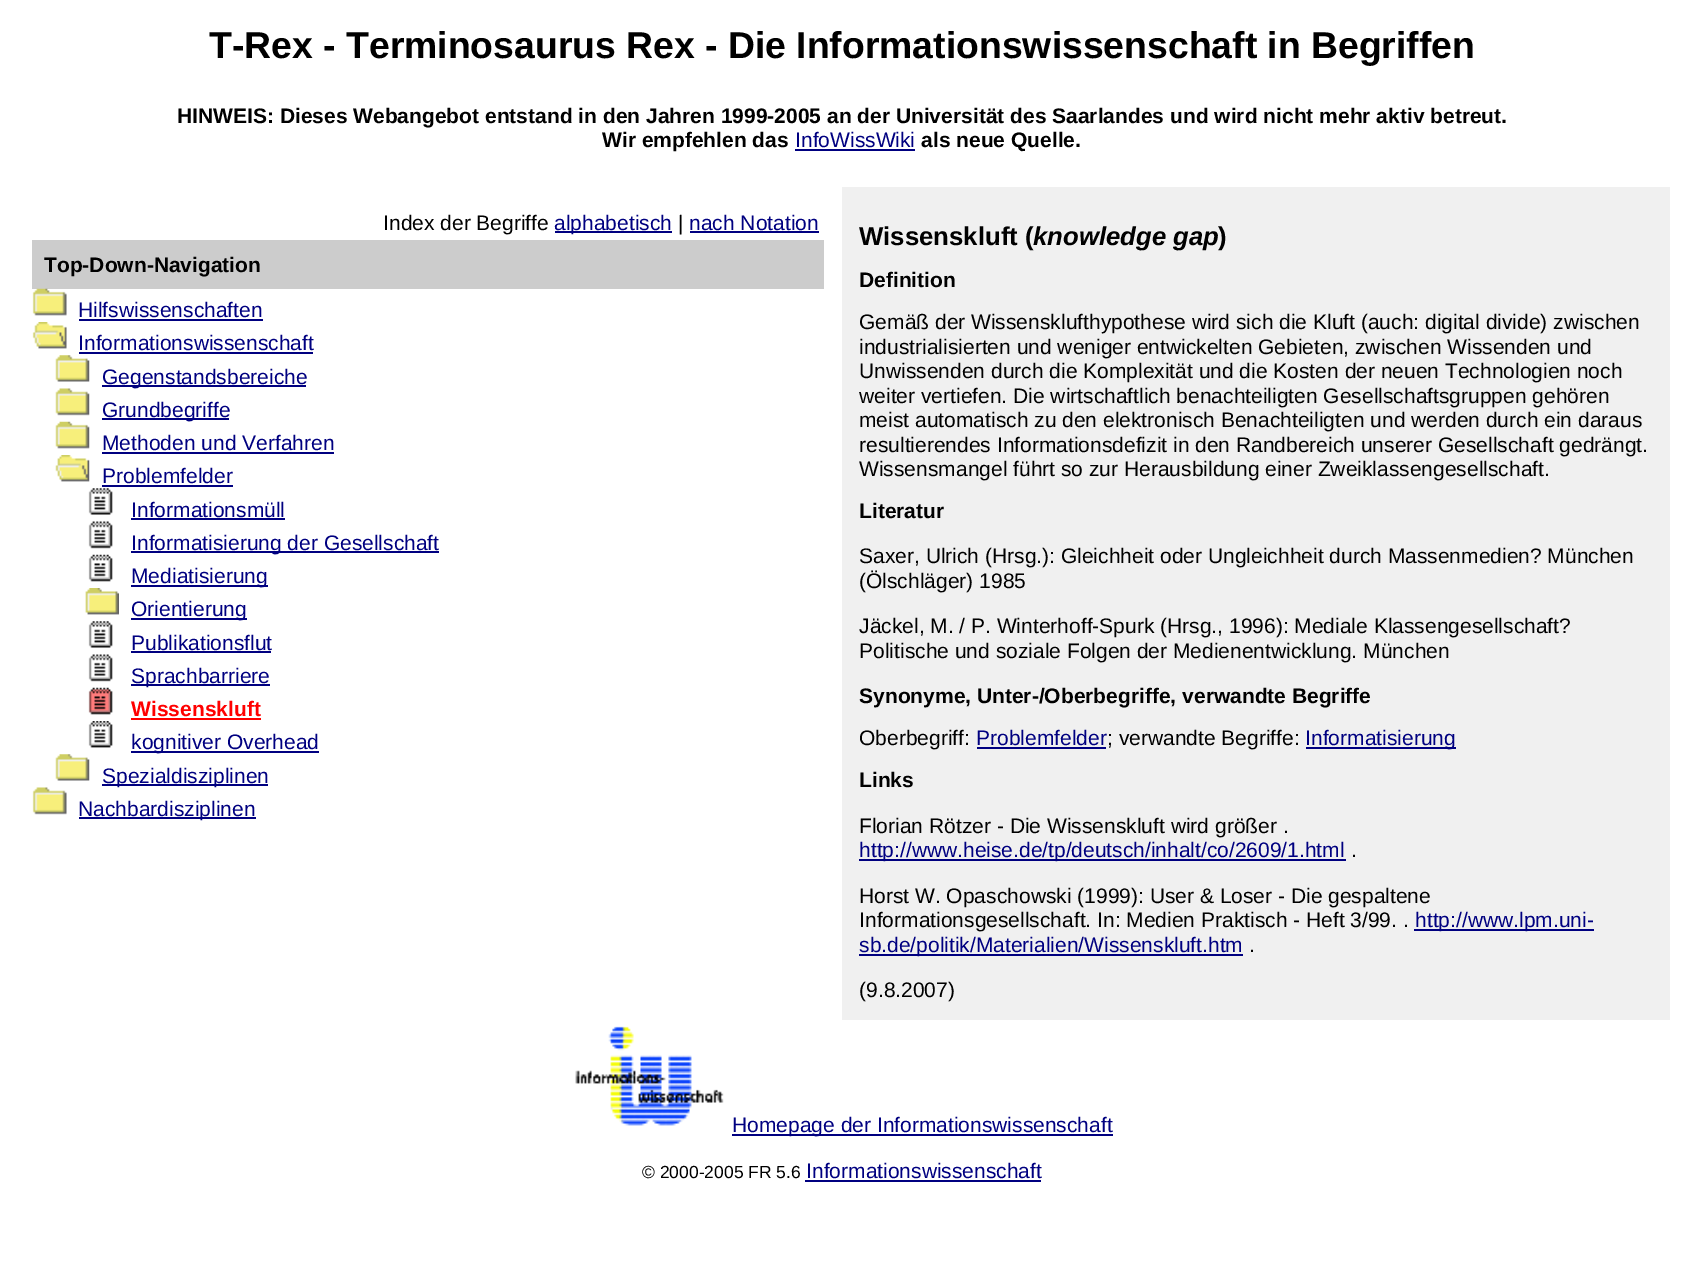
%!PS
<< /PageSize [1682 1288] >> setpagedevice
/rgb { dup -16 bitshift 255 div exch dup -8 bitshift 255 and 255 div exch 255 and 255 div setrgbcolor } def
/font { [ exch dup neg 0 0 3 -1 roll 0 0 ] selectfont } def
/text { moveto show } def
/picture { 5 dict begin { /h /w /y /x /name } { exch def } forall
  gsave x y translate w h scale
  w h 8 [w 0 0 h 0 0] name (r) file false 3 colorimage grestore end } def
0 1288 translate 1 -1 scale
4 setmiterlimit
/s1 { /LiberationSans-Bold 37.35 font 16#000000 rgb } def
/s2 { /LiberationSans-Bold 21 font 16#000000 rgb } def
/s3 { /LiberationSans-Regular 21 font 16#000080 rgb } def
/s4 { /LiberationSans-Regular 21 font 16#000000 rgb } def
/s5 { /LiberationSans-Bold 21 font 16#FF0000 rgb } def
/s6 { /LiberationSans-Bold 25.75 font 16#000000 rgb } def
/s7 { /LiberationSans-BoldItalic 25.75 font 16#000000 rgb } def
/s8 { /LiberationSans-Regular 17.5 font 16#000000 rgb } def
16#FFFFFF rgb
0 0 1682 1288 rectfill
s1
(T-Rex - Terminosaurus Rex - Die Informationswissenschaft in Begriffen) 209 58 text
s2
(HINWEIS: Dieses Webangebot entstand in den Jahren 1999-2005 an der Universität des Saarlandes und wird nicht mehr aktiv betreut.) 177 123 text
(Wir empfehlen das) 602 147 text
s3
(InfoWissWiki) 795 147 text
795 149 120 2 rectfill
s2
(als neue Quelle.) 921 147 text
s4
(Index der Begriffe) 383 230 text
16#000080 rgb
555 231 117 2 rectfill
(alphabetisch) 554 230 text
s4
(|) 678 230 text
s3
(nach Notation) 689 230 text
690 231 129 2 rectfill
16#CCCCCC rgb
32 240 792 49 rectfill
s2
(Top-Down-Navigation) 44 272 text
(pic1.raw) 32 288 35 28 picture
s3
(Hilfswissenschaften) 78 317 text
79 319 184 2 rectfill
(pic2.raw) 32 322 35 27 picture
(Informationswissenschaft) 78 350 text
79 352 234 2 rectfill
(pic3.raw) 55 355 35 27 picture
102 385 204 2 rectfill
(Gegenstandsbereiche) 102 384 text
(pic4.raw) 55 388 35 28 picture
102 418 127 2 rectfill
(Grundbegriffe) 102 417 text
(pic5.raw) 55 421 35 28 picture
(Methoden und Verfahren) 102 450 text
102 452 232 2 rectfill
(pic6.raw) 55 455 35 27 picture
(Problemfelder) 102 483 text
102 485 131 2 rectfill
(pic7.raw) 88 488 25 27 picture
(Informationsmüll) 131 517 text
131 518 154 2 rectfill
(pic8.raw) 88 521 25 28 picture
131 551 308 2 rectfill
(Informatisierung der Gesellschaft) 131 550 text
(pic9.raw) 88 554 25 28 picture
131 585 137 2 rectfill
(Mediatisierung) 131 583 text
(pic10.raw) 85 588 34 27 picture
131 618 116 2 rectfill
(Orientierung) 131 616 text
(pic7.raw) 88 621 25 27 picture
(Publikationsflut) 131 650 text
131 651 140 2 rectfill
(pic8.raw) 88 654 25 28 picture
131 684 139 2 rectfill
(Sprachbarriere) 131 683 text
(pic11.raw) 88 687 25 28 picture
s5
(Wissenskluft) 131 716 text
131 718 130 2 rectfill
(pic12.raw) 88 721 25 27 picture
16#000080 rgb
131 751 188 2 rectfill
s3
(kognitiver Overhead) 131 749 text
(pic3.raw) 55 754 35 27 picture
102 784 166 2 rectfill
(Spezialdisziplinen) 102 783 text
(pic13.raw) 32 787 35 28 picture
79 817 177 2 rectfill
(Nachbardisziplinen) 78 816 text
16#F0F0F0 rgb
842 187 828 833 rectfill
s6
(Wissenskluft \() 859 245 text
s7
(knowledge gap) 1033 245 text
s6
(\)) 1218 245 text
s2
(Definition) 859 287 text
s4
(Gemäß der Wissensklufthypothese wird sich die Kluft \(auch: digital divide\) zwischen) 859 329 text
(industrialisierten und weniger entwickelten Gebieten, zwischen Wissenden und) 859 354 text
(Unwissenden durch die Komplexität und die Kosten der neuen Technologien noch) 859 378 text
(weiter vertiefen. Die wirtschaftlich benachteiligten Gesellschaftsgruppen gehören) 859 403 text
(meist automatisch zu den elektronisch Benachteiligten und werden durch ein daraus) 859 427 text
(resultierendes Informationsdefizit in den Randbereich unserer Gesellschaft gedrängt.) 859 452 text
(Wissensmangel führt so zur Herausbildung einer Zweiklassengesellschaft.) 859 476 text
s2
(Literatur) 859 518 text
s4
(Saxer, Ulrich \(Hrsg.\): Gleichheit oder Ungleichheit durch Massenmedien? München) 859 563 text
(\(Ölschläger\) 1985) 859 588 text
(Jäckel, M. / P. Winterhoff-Spurk \(Hrsg., 1996\): Mediale Klassengesellschaft?) 859 633 text
(Politische und soziale Folgen der Medienentwicklung. München) 859 658 text
s2
(Synonyme, Unter-/Oberbegriffe, verwandte Begriffe) 859 703 text
s4
(Oberbegriff:) 859 745 text
s3
(Problemfelder) 976 745 text
977 747 129 2 rectfill
s4
(; verwandte Begriffe:) 1107 745 text
16#000080 rgb
1306 747 150 2 rectfill
(Informatisierung) 1305 745 text
s2
(Links) 859 787 text
s4
(Florian Rötzer - Die Wissenskluft wird größer .) 859 833 text
16#000080 rgb
859 859 487 2 rectfill
(http://www.heise.de/tp/deutsch/inhalt/co/2609/1.html) 859 857 text
s4
(.) 1351 857 text
(Horst W. Opaschowski \(1999\): User & Loser - Die gespaltene) 859 903 text
(Informationsgesellschaft. In: Medien Praktisch - Heft 3/99. .) 859 927 text
16#000080 rgb
1414 929 180 2 rectfill
(http://www.lpm.uni-) 1415 927 text
859 954 384 2 rectfill
(sb.de/politik/Materialien/Wissenskluft.htm) 859 952 text
s4
(.) 1249 952 text
(\(9.8.2007\)) 859 997 text
(pic14.raw) 575 1026 149 100 picture
16#000080 rgb
732 1134 381 2 rectfill
(Homepage der Informationswissenschaft) 732 1132 text
s8
(© 2000-2005 FR 5.6) 642 1178 text
s3
(Informationswissenschaft) 806 1178 text
805 1180 236 2 rectfill
showpage
